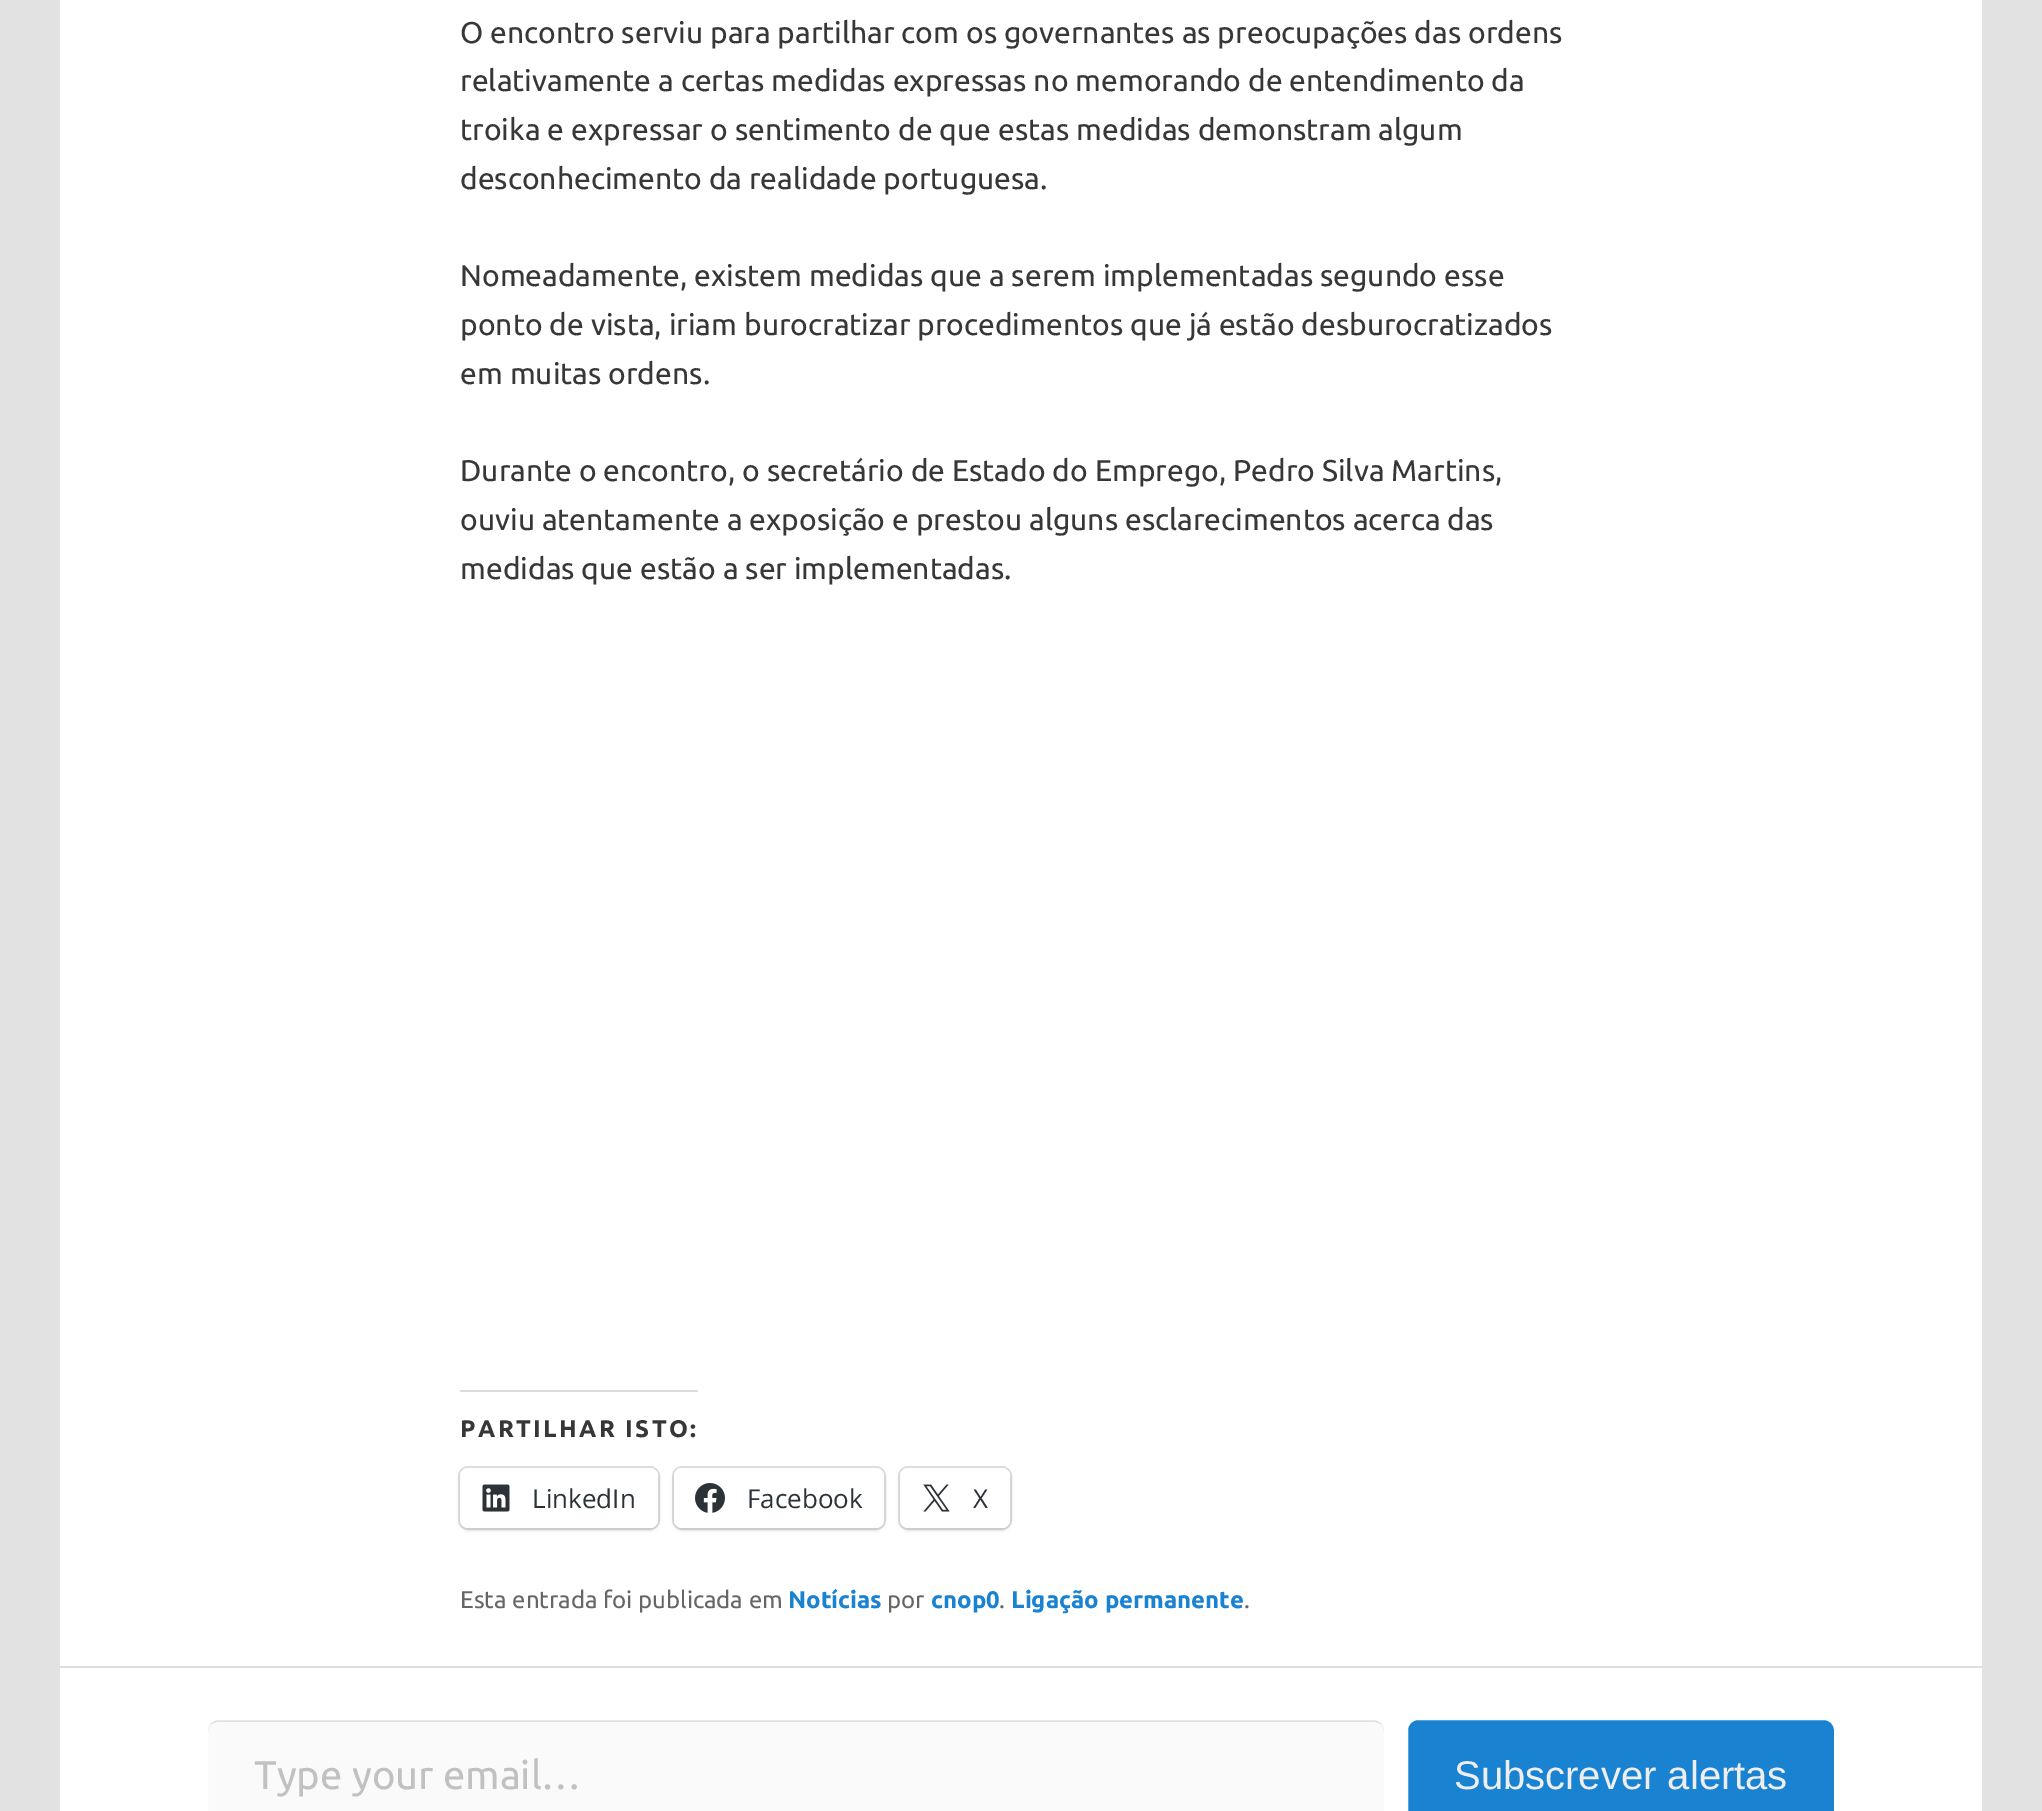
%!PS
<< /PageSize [2042 1811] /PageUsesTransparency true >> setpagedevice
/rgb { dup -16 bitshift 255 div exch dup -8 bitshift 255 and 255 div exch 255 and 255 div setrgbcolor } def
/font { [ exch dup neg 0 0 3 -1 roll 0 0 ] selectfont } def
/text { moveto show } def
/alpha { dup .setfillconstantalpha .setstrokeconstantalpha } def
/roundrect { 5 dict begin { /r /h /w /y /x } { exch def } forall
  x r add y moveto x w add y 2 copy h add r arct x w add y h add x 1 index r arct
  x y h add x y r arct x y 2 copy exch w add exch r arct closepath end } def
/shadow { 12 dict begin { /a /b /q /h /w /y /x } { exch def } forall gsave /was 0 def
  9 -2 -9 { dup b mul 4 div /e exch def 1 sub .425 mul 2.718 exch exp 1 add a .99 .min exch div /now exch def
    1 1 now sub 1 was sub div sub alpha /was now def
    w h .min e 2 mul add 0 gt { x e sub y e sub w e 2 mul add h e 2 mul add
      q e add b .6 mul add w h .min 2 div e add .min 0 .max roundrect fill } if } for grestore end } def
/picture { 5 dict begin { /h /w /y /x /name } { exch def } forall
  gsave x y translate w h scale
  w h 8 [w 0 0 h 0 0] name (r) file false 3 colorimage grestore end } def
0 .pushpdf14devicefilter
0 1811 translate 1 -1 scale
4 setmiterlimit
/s1 { /Ubuntu-Regular 30 font 16#373737 rgb } def
/s2 { /OpenSans-Regular 26 font 16#2C3338 rgb } def
/s3 { /Ubuntu-Regular 24 font 16#666666 rgb } def
/s4 { /Ubuntu-Bold 24 font 16#1982D1 rgb } def
/s5 { /Ubuntu-Regular 40 font 16#C1C1C1 rgb } def
/s6 { /LiberationSans-Regular 40 font 16#EEEEEE rgb } def
16#E2E2E2 rgb
0 0 2042 1811 rectfill
16#FFFFFF rgb
60 0 1922 1811 rectfill
s1
(O encontro serviu para partilhar com os governantes as preocupações das ordens) 460 43 text
(relativamente a certas medidas expressas no memorando de entendimento da) 460 91 text
(troika e expressar o sentimento de que estas medidas demonstram algum) 460 140 text
(desconhecimento da realidade portuguesa.) 460 189 text
(Nomeadamente, existem medidas que a serem implementadas segundo esse) 460 286 text
(ponto de vista, iriam burocratizar procedimentos que já estão desburocratizados) 460 335 text
(em muitas ordens.) 460 384 text
(Durante o encontro, o secretário de Estado do Emprego, Pedro Silva Martins,) 460 481 text
(ouviu atentamente a exposição e prestou alguns esclarecimentos acerca das) 460 530 text
(medidas que estão a ser implementadas.) 460 579 text
16#DCDCDE rgb
460 1390 238 2 rectfill
/Ubuntu-Bold 24 font
16#373737 rgb
460 1437 moveto 2.4 0 (PARTILHAR ISTO:) ashow
16#E0E0E0 rgb
2 setlinewidth
459 1467 200 62 9 roundrect stroke
16#000000 rgb
460 1470 198 60 8 2 0.12 shadow
16#FFFFFF rgb
460 1468 198 60 8 roundrect fill
(pic1.raw) 482 1484 28 28 picture
s2
(LinkedIn) 532 1508 text
16#E0E0E0 rgb
673 1467 212 62 9 roundrect stroke
16#000000 rgb
674 1470 210 60 8 2 0.12 shadow
16#FFFFFF rgb
674 1468 210 60 8 roundrect fill
(pic2.raw) 695 1483 30 30 picture
s2
(Facebook) 747 1508 text
16#E0E0E0 rgb
899 1467 112 62 9 roundrect stroke
16#000000 rgb
900 1470 110 60 8 2 0.12 shadow
16#FFFFFF rgb
900 1468 110 60 8 roundrect fill
(pic3.raw) 923 1484 27 28 picture
s2
(X) 973 1508 text
s3
(Esta entrada foi publicada em) 460 1608 text
s4
(Notícias) 788 1608 text
s3
(por) 887 1608 text
s4
(cnop0) 931 1608 text
s3
(.) 999 1608 text
s4
(Ligação permanente) 1011 1608 text
s3
(.) 1244 1608 text
16#DDDDDD rgb
60 1666 1922 2 rectfill
16#FAFAFA rgb
206 1718 1180 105 12 roundrect fill
16#E1E1E1 rgb
218 1722 moveto 1374 1722 lineto 1380 1722 1384 1726 1384 1732 curveto 1384 1730 lineto 1384 1724 1380 1720 1374 1720 curveto 218 1720 lineto 212 1720 208 1724 208 1730 curveto 208 1732 lineto 208 1726 212 1722 218 1722 curveto closepath fill
16#FFFFFF rgb
207 1719 1178 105 11 roundrect stroke
s5
(Type your email…) 254 1789 text
16#1982D1 rgb
1407 1719 428 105 11 roundrect gsave fill grestore
16#FFFFFF rgb
stroke
s6
(Subscrever alertas) 1454 1789 text
.poppdf14devicefilter showpage
